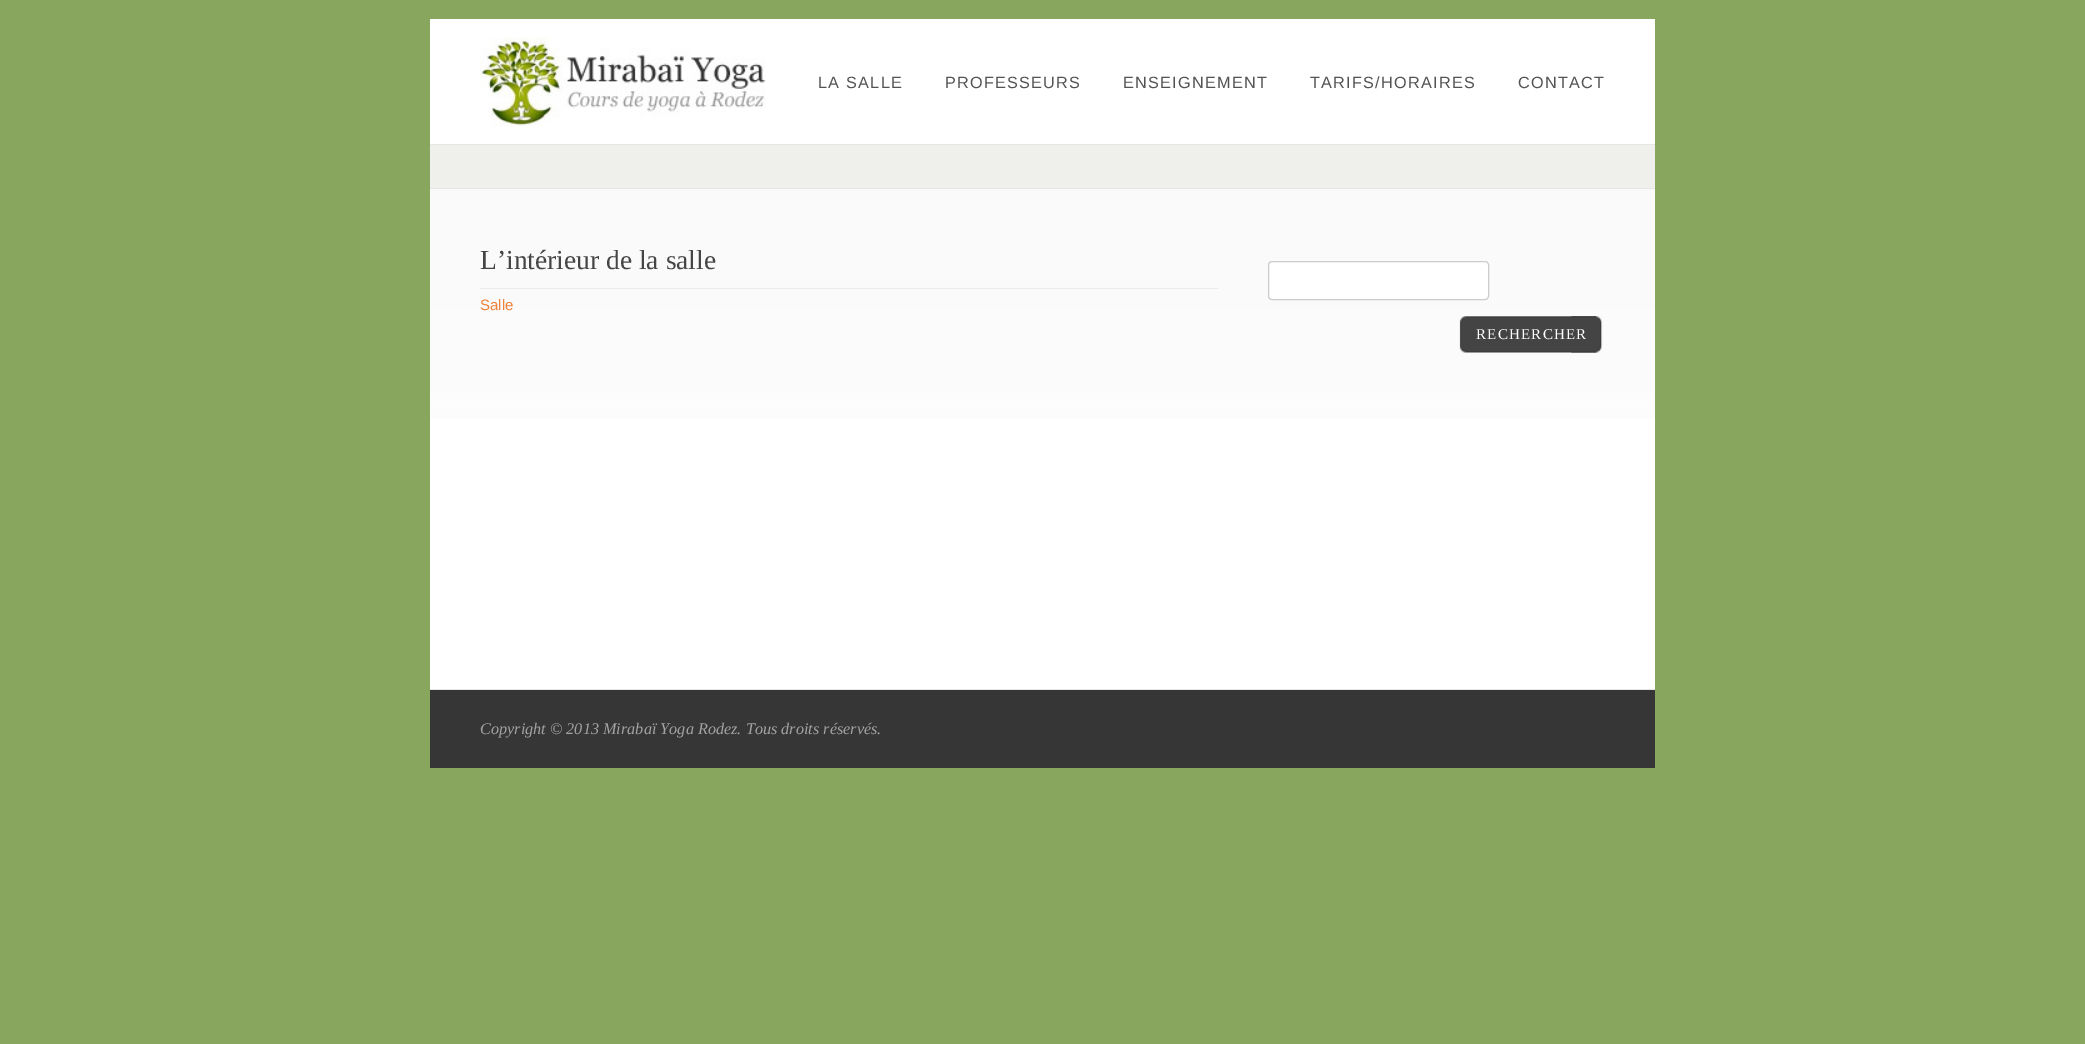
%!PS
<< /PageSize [2085 1044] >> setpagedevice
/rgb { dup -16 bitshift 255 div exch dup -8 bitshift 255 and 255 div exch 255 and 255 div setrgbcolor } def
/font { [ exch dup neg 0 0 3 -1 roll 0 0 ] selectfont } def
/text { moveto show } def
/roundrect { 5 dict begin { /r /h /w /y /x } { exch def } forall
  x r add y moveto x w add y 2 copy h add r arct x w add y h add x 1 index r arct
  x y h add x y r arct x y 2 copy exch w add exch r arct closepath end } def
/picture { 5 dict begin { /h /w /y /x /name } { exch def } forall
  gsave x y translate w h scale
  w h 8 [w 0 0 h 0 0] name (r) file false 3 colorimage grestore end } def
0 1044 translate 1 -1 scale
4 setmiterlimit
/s1 { /LiberationSerif-Regular 27.5 font 16#454545 rgb } def
/s2 { /LiberationSans-Regular 15 font 16#ED8137 rgb } def
/s3 { /LiberationSerif-Italic 16.25 font 16#A3A3A3 rgb } def
16#88A65E rgb
0 0 2085 1044 rectfill
16#FFFFFF rgb
430 19 1225 670 rectfill
(pic1.raw) 480 37 286 90 picture
/LiberationSans-Regular 16.25 font
16#535353 rgb
818 88 moveto 1.25 0 (LA SALLE) ashow
945 88 moveto 1.25 0 (PROFESSEURS) ashow
1123 88 moveto 1.25 0 (ENSEIGNEMENT) ashow
1310 88 moveto 1.25 0 (TARIFS/HORAIRES) ashow
1518 88 moveto 1.25 0 (CONTACT) ashow
16#EFEFEC rgb
430 145 1225 43 rectfill
16#E6E6E6 rgb
430 144 1225 1 rectfill
430 188 1225 1 rectfill
(pic2.raw) 430 189 1225 229 picture
s1
(L’intérieur de la salle) 480 269 text
16#EBEBEB rgb
480 288 738 1 rectfill
s2
(Salle) 480 310 text
16#FFFFFF rgb
1268.5 261.5 220 38 3.5 roundrect gsave fill grestore
16#CCCCCC rgb
stroke
(pic3.raw) 1571 316 32 37 picture
(pic4.raw) 1459 316 138 37 picture
/LiberationSerif-Regular 15 font
16#FFFFFF rgb
1476 339 moveto 1.25 0 (RECHERCHER) ashow
16#E6E6E6 rgb
430 689 1225 1 rectfill
16#363636 rgb
430 690 1225 78 rectfill
s3
(Copyright © 2013 Mirabaï Yoga Rodez. Tous droits réservés.) 480 734 text
showpage
